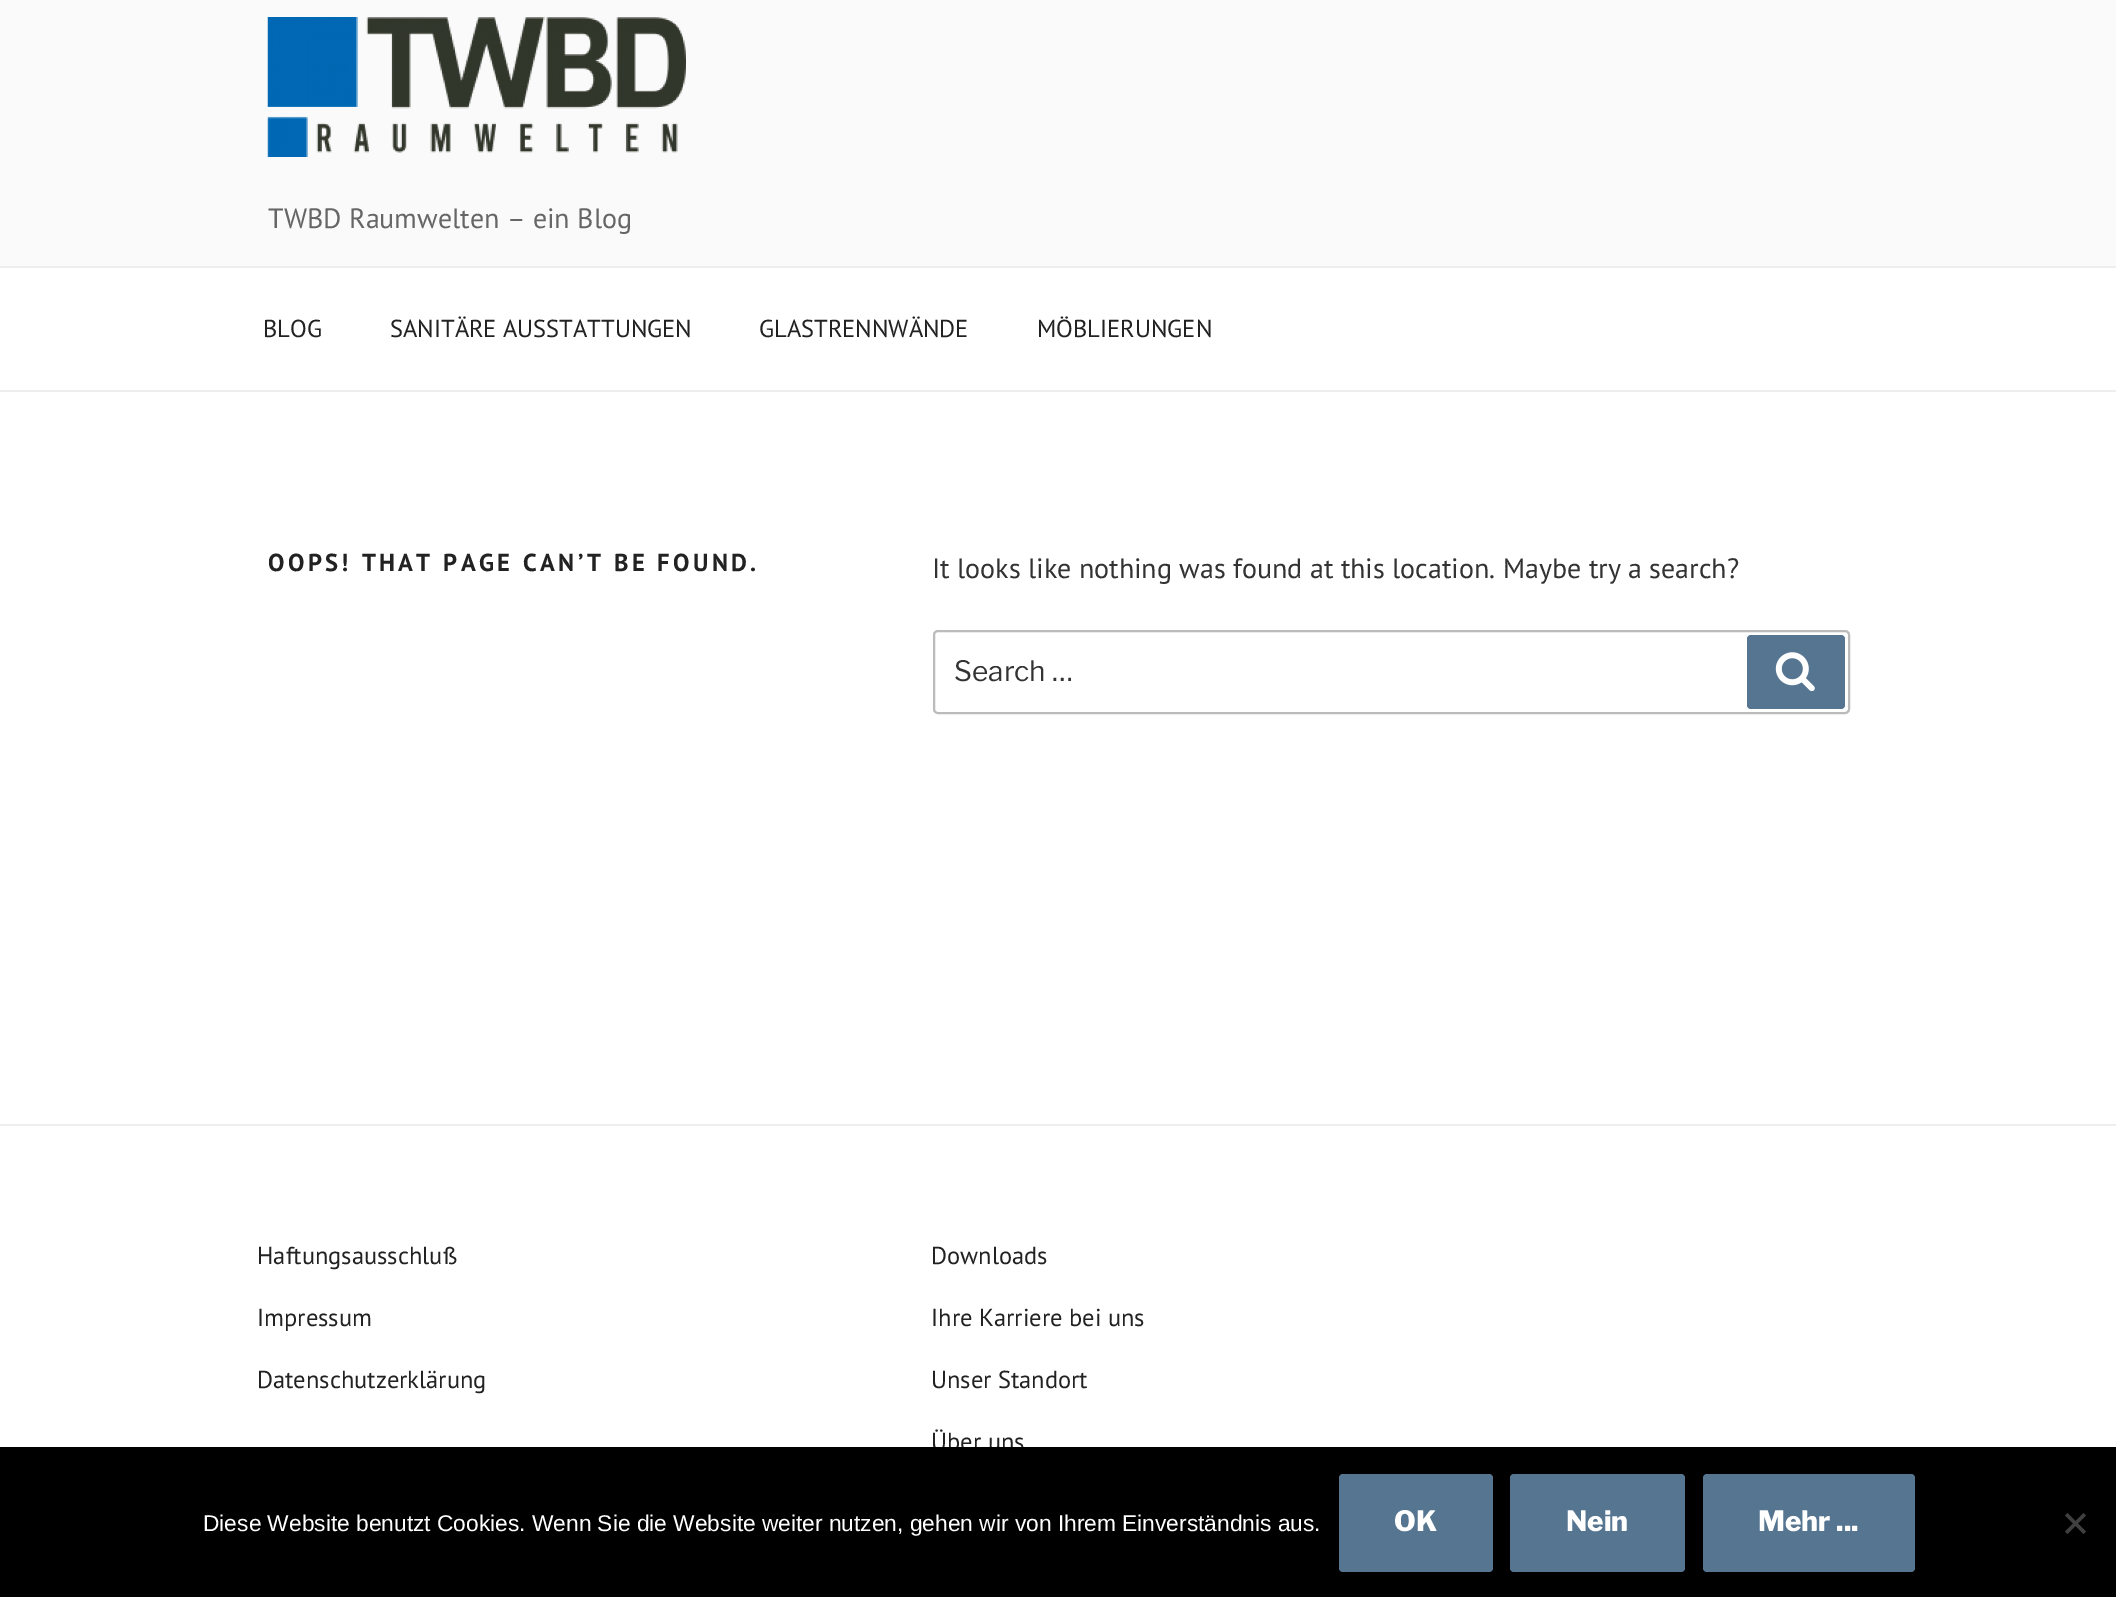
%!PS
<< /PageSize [2116 1597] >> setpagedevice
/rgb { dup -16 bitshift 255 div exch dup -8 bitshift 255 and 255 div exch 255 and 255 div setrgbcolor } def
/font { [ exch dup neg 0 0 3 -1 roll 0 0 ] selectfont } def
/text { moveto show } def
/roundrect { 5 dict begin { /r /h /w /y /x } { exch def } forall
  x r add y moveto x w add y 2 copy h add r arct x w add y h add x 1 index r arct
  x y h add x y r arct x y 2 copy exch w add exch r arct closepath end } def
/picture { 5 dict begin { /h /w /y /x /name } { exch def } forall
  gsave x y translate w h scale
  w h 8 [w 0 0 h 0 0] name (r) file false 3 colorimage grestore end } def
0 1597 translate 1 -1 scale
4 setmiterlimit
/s1 { /PTSans-Regular 28 font 16#666666 rgb } def
/s2 { /PTSans-Regular 24.5 font 16#222222 rgb } def
/s3 { /PTSans-Regular 28 font 16#333333 rgb } def
/s4 { /LibreFranklin-Regular 28 font 16#333333 rgb } def
/s5 { /LiberationSans-Regular 22.75 font 16#FFFFFF rgb } def
/s6 { /LibreFranklin-ExtraBold 28 font 16#FFFFFF rgb } def
16#FFFFFF rgb
0 0 2116 1597 rectfill
16#FAFAFA rgb
0 0 2116 266 rectfill
(pic1.raw) 267 17 419 140 picture
s1
(TWBD Raumwelten – ein Blog) 268 228 text
16#EEEEEE rgb
0 266 2116 2 rectfill
0 390 2116 2 rectfill
s2
(BLOG) 263 337 text
(SANITÄRE AUSSTATTUNGEN) 390 337 text
(GLASTRENNWÄNDE) 759 337 text
(MÖBLIERUNGEN) 1037 337 text
/PTSans-Bold 24.5 font
268 571 moveto 3.4 0 (OOPS! THAT PAGE CAN’T BE FOUND.) ashow
s3
(It looks like nothing was found at this location. Maybe try a search?) 932 578 text
16#BBBBBB rgb
2 setlinewidth
934 631 915 82 4 roundrect stroke
s4
(Search …) 954 681 text
16#567590 rgb
1747 635 98 74 4 roundrect fill
(pic2.raw) 1775 652 40 39 picture
16#EEEEEE rgb
0 1124 2116 2 rectfill
s2
(Haftungsausschluß) 257 1264 text
(Impressum) 257 1326 text
(Datenschutzerklärung) 257 1388 text
(Downloads) 931 1264 text
(Ihre Karriere bei uns) 931 1326 text
(Unser Standort) 931 1388 text
(Über uns) 931 1450 text
16#000000 rgb
0 1447 2116 150 rectfill
s5
(Diese Website benutzt Cookies. Wenn Sie die Website weiter nutzen, gehen wir von Ihrem Einverständnis aus.) 203 1531 text
16#567590 rgb
1339 1474 154 98 4 roundrect fill
s6
(OK) 1394 1531 text
16#567590 rgb
1510 1474 175 98 4 roundrect fill
s6
(Nein) 1566 1531 text
16#567590 rgb
1703 1474 212 98 4 roundrect fill
s6
(Mehr ...) 1758 1531 text
16#404040 rgb
2083.5 1513 moveto 2086 1515.5 lineto 2067.5 1534 lineto 2065 1531.5 lineto closepath fill
2065 1515.5 moveto 2067.5 1513 lineto 2086 1531.5 lineto 2083.5 1534 lineto closepath fill
showpage
